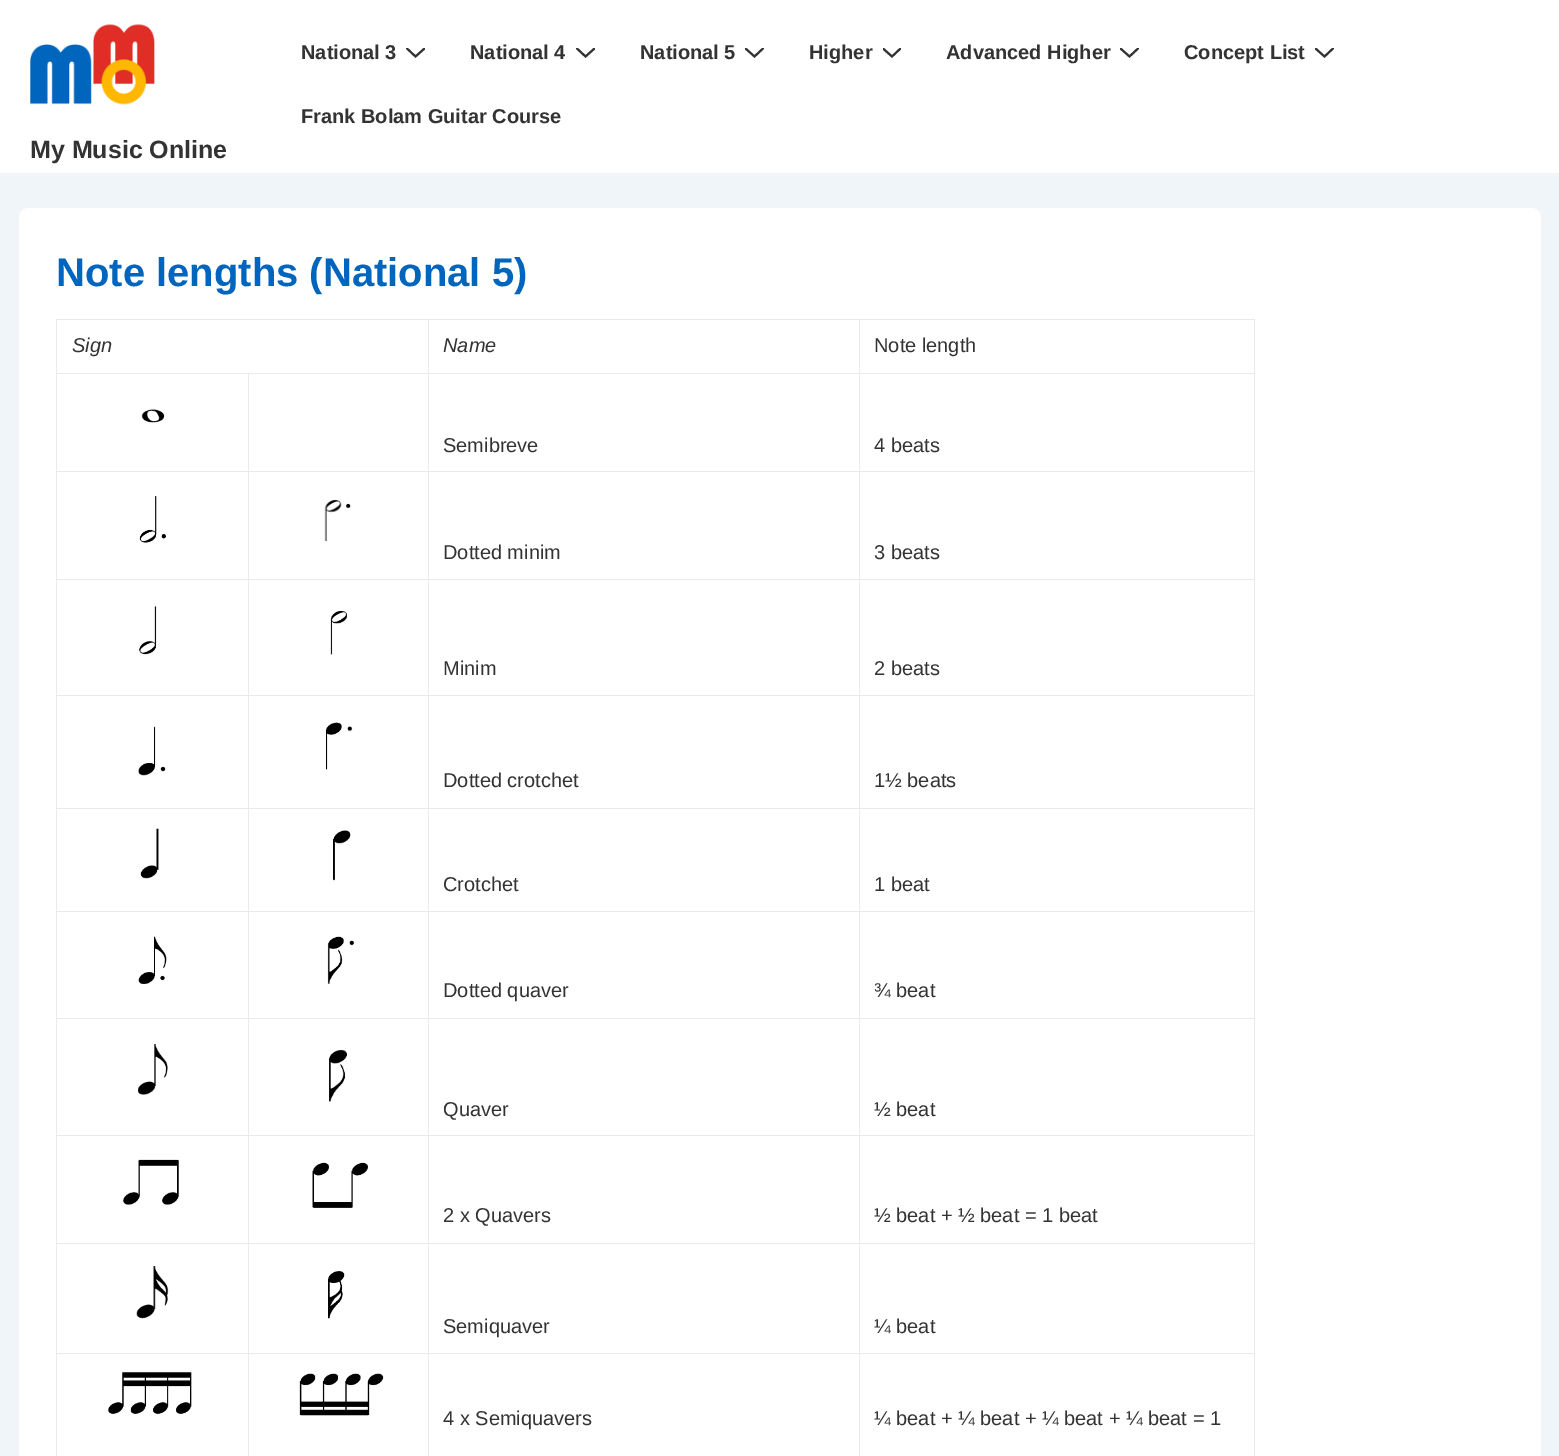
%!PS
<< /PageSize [1559 1456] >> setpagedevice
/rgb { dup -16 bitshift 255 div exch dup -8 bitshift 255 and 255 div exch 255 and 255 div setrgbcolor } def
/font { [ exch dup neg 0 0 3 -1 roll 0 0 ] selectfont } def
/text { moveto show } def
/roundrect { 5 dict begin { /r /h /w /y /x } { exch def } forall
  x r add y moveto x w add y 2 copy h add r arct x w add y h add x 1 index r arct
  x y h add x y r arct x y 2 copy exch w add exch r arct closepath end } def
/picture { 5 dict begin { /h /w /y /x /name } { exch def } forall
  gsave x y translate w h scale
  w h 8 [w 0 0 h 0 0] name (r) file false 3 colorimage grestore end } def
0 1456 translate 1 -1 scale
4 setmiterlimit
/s1 { /LiberationSans-Bold 20 font 16#333333 rgb } def
/s2 { /LiberationSans-Bold 25 font 16#333333 rgb } def
/s3 { /LiberationSans-Bold 40 font 16#0065BD rgb } def
/s4 { /LiberationSans-Italic 20 font 16#333333 rgb } def
/s5 { /LiberationSans-Regular 20 font 16#333333 rgb } def
16#F0F5FA rgb
0 0 1559 1456 rectfill
16#FFFFFF rgb
0 0 1559 173 rectfill
s1
(National 3) 301 59 text
gsave
406 48 19 10 rectclip
2 setlinewidth
1 setlinecap
407 48.5 moveto 415.5 56.5 lineto 424.5 48.5 lineto stroke
grestore
(National 4) 470 59 text
gsave
576 48 19 10 rectclip
2 setlinewidth
1 setlinecap
577 48.5 moveto 585.5 56.5 lineto 594.5 48.5 lineto stroke
grestore
(National 5) 640 59 text
gsave
745 48 19 10 rectclip
2 setlinewidth
1 setlinecap
745.5 48.5 moveto 754.5 56.5 lineto 763 48.5 lineto stroke
grestore
(Higher) 809 59 text
gsave
883 48 18 10 rectclip
2 setlinewidth
1 setlinecap
883 48.5 moveto 892 56.5 lineto 900.5 48.5 lineto stroke
grestore
(Advanced Higher) 946 59 text
gsave
1120 48 19 10 rectclip
2 setlinewidth
1 setlinecap
1120.5 48.5 moveto 1129.5 56.5 lineto 1138 48.5 lineto stroke
grestore
(Concept List) 1184 59 text
gsave
1315 48 19 10 rectclip
2 setlinewidth
1 setlinecap
1315.5 48.5 moveto 1324.5 56.5 lineto 1333 48.5 lineto stroke
grestore
(Frank Bolam Guitar Course) 301 123 text
(pic1.raw) 30 23 125 82 picture
s2
(My Music Online) 30 158 text
16#FFFFFF rgb
19 208 1522 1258 10 roundrect fill
s3
(Note lengths \(National 5\)) 56 286 text
16#EAEAEA rgb
56 319 1199 1 rectfill
1254 319 1 1137 rectfill
56 319 1 1137 rectfill
s4
(Sign) 72 352 text
16#EAEAEA rgb
859 373 396 1 rectfill
859 471 396 1 rectfill
859 579 396 1 rectfill
859 695 396 1 rectfill
859 808 396 1 rectfill
859 911 396 1 rectfill
859 1018 396 1 rectfill
859 1135 396 1 rectfill
859 1243 396 1 rectfill
859 1353 396 1 rectfill
859 1353 1 103 rectfill
428 1353 432 1 rectfill
859 1243 1 111 rectfill
428 1243 432 1 rectfill
859 1135 1 109 rectfill
428 1135 432 1 rectfill
859 1018 1 118 rectfill
428 1018 432 1 rectfill
859 911 1 108 rectfill
428 911 432 1 rectfill
859 808 1 105 rectfill
428 808 432 1 rectfill
859 695 1 114 rectfill
428 695 432 1 rectfill
859 579 1 117 rectfill
428 579 432 1 rectfill
859 471 1 109 rectfill
428 471 432 1 rectfill
859 373 1 100 rectfill
428 373 432 1 rectfill
428 1353 1 103 rectfill
248 1353 181 1 rectfill
428 1243 1 111 rectfill
248 1243 181 1 rectfill
428 1135 1 109 rectfill
248 1135 181 1 rectfill
428 1018 1 118 rectfill
248 1018 181 1 rectfill
428 911 1 108 rectfill
248 911 181 1 rectfill
428 808 1 105 rectfill
248 808 181 1 rectfill
428 695 1 114 rectfill
248 695 181 1 rectfill
428 579 1 117 rectfill
248 579 181 1 rectfill
428 471 1 109 rectfill
248 471 181 1 rectfill
428 373 1 100 rectfill
248 373 181 1 rectfill
428 319 1 55 rectfill
s4
(Name) 443 352 text
16#EAEAEA rgb
859 319 1 55 rectfill
s5
(Note length) 874 352 text
16#EAEAEA rgb
248 1353 1 103 rectfill
56 1353 193 1 rectfill
248 1243 1 111 rectfill
56 1243 193 1 rectfill
248 1135 1 109 rectfill
56 1135 193 1 rectfill
248 1018 1 118 rectfill
56 1018 193 1 rectfill
248 911 1 108 rectfill
56 911 193 1 rectfill
248 808 1 105 rectfill
56 808 193 1 rectfill
248 695 1 114 rectfill
56 695 193 1 rectfill
248 579 1 117 rectfill
56 579 193 1 rectfill
248 471 1 109 rectfill
56 471 193 1 rectfill
248 373 1 100 rectfill
56 373 193 1 rectfill
(pic2.raw) 141 409 24 14 picture
s5
(Semibreve) 443 452 text
(4 beats) 874 452 text
(pic3.raw) 139 496 27 47 picture
(pic4.raw) 324 499 27 43 picture
(Dotted minim) 443 559 text
(3 beats) 874 559 text
(pic5.raw) 139 606 18 49 picture
(pic6.raw) 330 610 17 45 picture
(Minim) 443 675 text
(2 beats) 874 675 text
(pic7.raw) 138 726 28 50 picture
(pic8.raw) 326 722 27 48 picture
(Dotted crotchet) 443 787 text
(1½ beats) 874 787 text
(pic9.raw) 140 828 19 51 picture
(pic10.raw) 333 830 18 51 picture
(Crotchet) 443 891 text
(1 beat) 874 891 text
(pic11.raw) 138 936 29 48 picture
(pic12.raw) 327 936 28 48 picture
(Dotted quaver) 443 997 text
(¾ beat) 874 997 text
(pic13.raw) 138 1044 30 51 picture
(pic14.raw) 329 1050 19 52 picture
(Quaver) 443 1116 text
(½ beat) 874 1116 text
(pic15.raw) 123 1159 56 46 picture
(pic16.raw) 312 1162 56 46 picture
(2 x Quavers) 443 1222 text
(½ beat + ½ beat = 1 beat) 874 1222 text
(pic17.raw) 136 1266 33 53 picture
(pic18.raw) 328 1271 17 48 picture
(Semiquaver) 443 1333 text
(¼ beat) 874 1333 text
(pic19.raw) 108 1372 84 42 picture
(pic20.raw) 299 1373 85 43 picture
(4 x Semiquavers) 443 1425 text
(¼ beat + ¼ beat + ¼ beat + ¼ beat = 1) 874 1425 text
showpage
